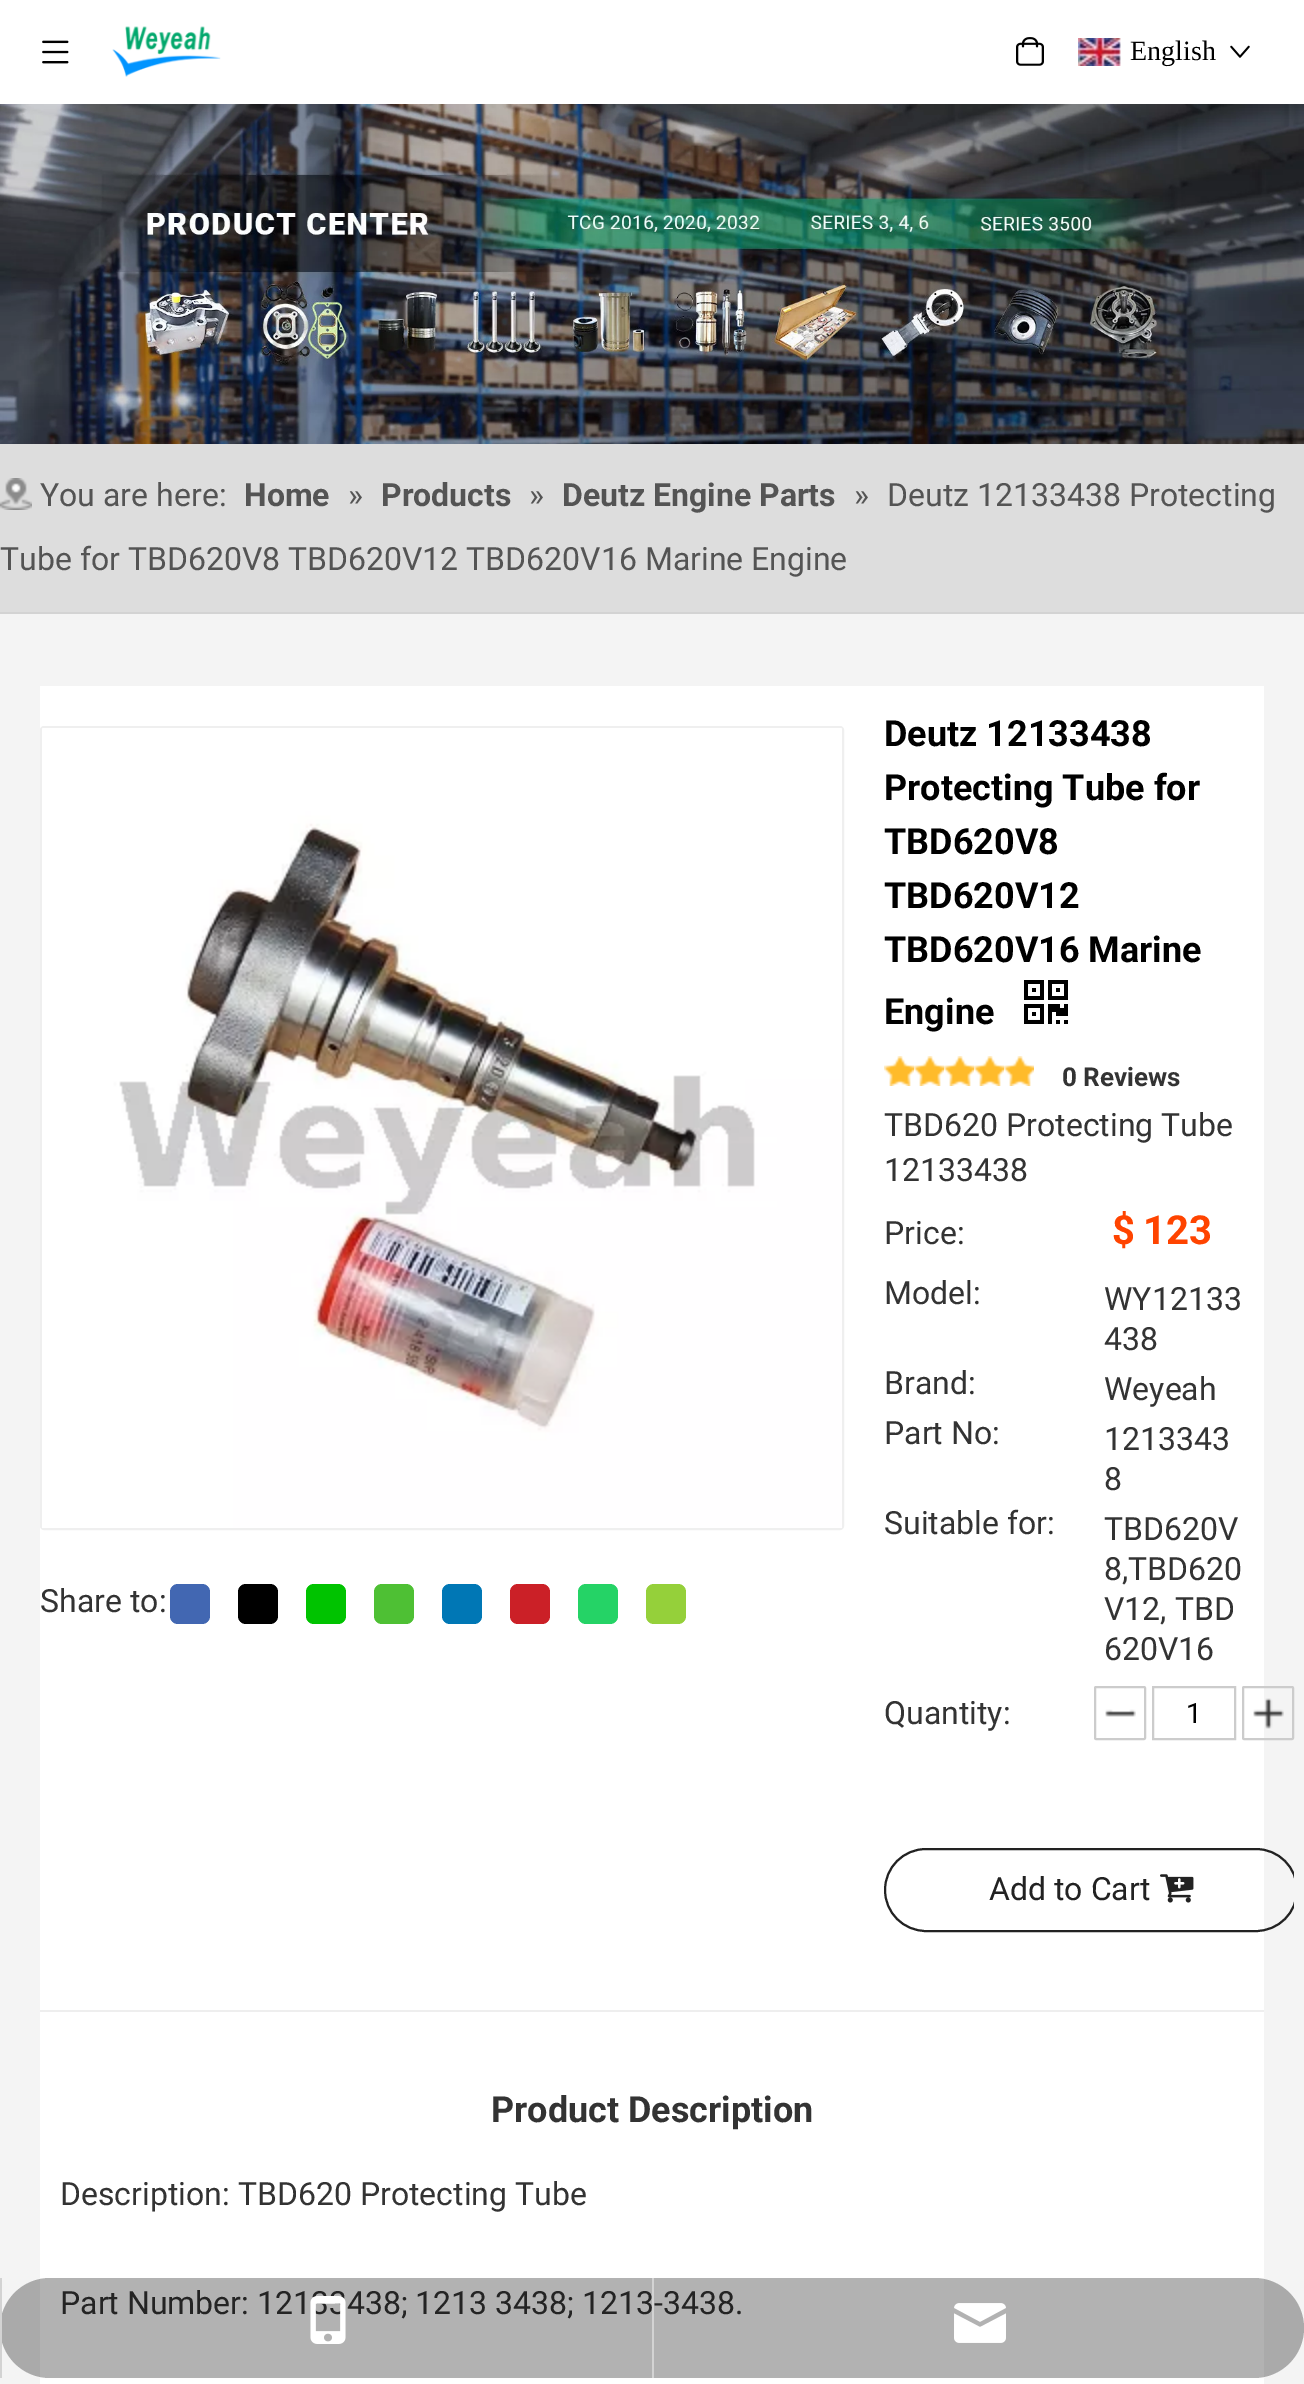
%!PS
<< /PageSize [1304 2384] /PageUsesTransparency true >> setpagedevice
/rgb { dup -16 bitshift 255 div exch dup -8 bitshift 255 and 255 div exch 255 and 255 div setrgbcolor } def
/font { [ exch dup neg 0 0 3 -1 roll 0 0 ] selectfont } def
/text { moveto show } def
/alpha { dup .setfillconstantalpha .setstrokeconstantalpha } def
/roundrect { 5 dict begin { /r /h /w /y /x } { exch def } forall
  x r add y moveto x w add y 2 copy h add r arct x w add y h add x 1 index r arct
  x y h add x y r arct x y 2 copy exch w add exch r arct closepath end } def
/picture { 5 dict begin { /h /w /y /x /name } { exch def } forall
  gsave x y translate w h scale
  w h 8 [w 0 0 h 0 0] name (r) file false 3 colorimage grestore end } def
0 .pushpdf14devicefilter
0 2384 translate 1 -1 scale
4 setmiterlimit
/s1 { /LiberationSerif-Regular 28 font 16#000000 rgb } def
/s2 { /Roboto-Regular 32 font 16#545454 rgb } def
/s3 { /Roboto-Bold 32 font 16#545454 rgb } def
/s4 { /Roboto-Regular 32 font 16#333333 rgb } def
/s5 { /Roboto-Bold 36 font 16#000000 rgb } def
/s6 { /Roboto-Bold 26 font 16#333333 rgb } def
/s7 { /Roboto-Bold 40 font 16#FF4400 rgb } def
/s8 { /Roboto-Regular 28 font 16#000000 rgb } def
/s9 { /Roboto-Regular 32 font 16#222222 rgb } def
/s10 { /Roboto-Bold 36 font 16#333333 rgb } def
16#F4F4F4 rgb
0 0 1304 2384 rectfill
16#FFFFFF rgb
0 0 1304 104 rectfill
(pic1.raw) 42 40 27 24 picture
(pic2.raw) 112 26 109 51 picture
(pic3.raw) 1016 37 28 29 picture
(pic4.raw) 1078 38 43 28 picture
s1
(English) 1130 60 text
(pic5.raw) 1230 45 20 13 picture
(pic6.raw) 0 104 1304 340 picture
16#DDDDDD rgb
0 444 1304 168 rectfill
16#D3D3D3 rgb
0 612 1304 2 rectfill
(pic7.raw) 0 478 32 32 picture
s2
(You are here:) 40 506 text
s3
(Home) 244 506 text
s2
(») 348 506 text
s3
(Products) 381 506 text
s2
(») 529 506 text
s3
(Deutz Engine Parts) 562 506 text
s2
(») 854 506 text
(Deutz 12133438 Protecting) 887 506 text
(Tube for TBD620V8 TBD620V12 TBD620V16 Marine Engine) 0 570 text
16#FFFFFF rgb
40 686 1224 1698 rectfill
16#EFEFEF rgb
2 setlinewidth
41 727 802 802 3 roundrect stroke
(pic8.raw) 42 728 800 800 picture
s4
(Share to:) 40 1612 text
16#4267B2 rgb
170 1584 40 40 8 roundrect fill
16#000000 rgb
238 1584 40 40 8 roundrect fill
16#00C300 rgb
306 1584 40 40 8 roundrect fill
16#4EC034 rgb
374 1584 40 40 8 roundrect fill
16#0077B5 rgb
442 1584 40 40 8 roundrect fill
16#CB2027 rgb
510 1584 40 40 8 roundrect fill
16#25D366 rgb
578 1584 40 40 8 roundrect fill
16#95D03A rgb
646 1584 40 40 8 roundrect fill
s5
(Deutz 12133438) 884 746 text
(Protecting Tube for) 884 800 text
(TBD620V8) 884 854 text
(TBD620V12) 884 908 text
(TBD620V16 Marine) 884 962 text
(Engine) 884 1024 text
(pic9.raw) 1024 980 44 44 picture
(pic10.raw) 884 1056 30 30 picture
(pic10.raw) 914 1056 30 30 picture
(pic10.raw) 944 1056 30 30 picture
(pic10.raw) 974 1056 30 30 picture
(pic10.raw) 1004 1056 30 30 picture
s6
(0 Reviews) 1062 1086 text
s4
(TBD620 Protecting Tube) 884 1136 text
(12133438) 884 1181 text
(Price:) 884 1244 text
s7
($) 1112 1244 text
(123) 1143 1244 text
s4
(Model:) 884 1304 text
(WY12133) 1104 1310 text
(438) 1104 1350 text
(Brand:) 884 1394 text
(Weyeah) 1104 1400 text
(Part No:) 884 1444 text
(1213343) 1104 1450 text
(8) 1104 1490 text
(Suitable for:) 884 1534 text
(TBD620V) 1104 1540 text
(8,TBD620) 1104 1580 text
(V12, TBD) 1104 1620 text
(620V16) 1104 1660 text
(Quantity:) 884 1724 text
(pic11.raw) 1105 1709 31 8 picture
16#CCCCCC rgb
1095 1687 50 52 1 roundrect stroke
1153 1687 82 52 rectstroke
s8
(1) 1186 1723 text
(pic12.raw) 1253 1698 31 31 picture
16#CCCCCC rgb
1243 1687 50 52 1 roundrect stroke
gsave
884 1828 410 124 rectclip
16#222222 rgb
885 1849 412 82 41 roundrect stroke
grestore
s9
(Add to Cart) 989 1900 text
(pic13.raw) 1160 1874 34 29 picture
16#EEEEEE rgb
40 2010 1224 2 rectfill
s10
(Product Description) 491 2122 text
s4
(Description: TBD620 Protecting Tube) 60 2205 text
(Part Number: 12133438; 1213 3438; 1213-3438.) 60 2314 text
0.3 alpha
16#000000 rgb
0 2278 1304 100 50 roundrect fill
1 alpha
16#D3D3D3 rgb
0 2278 2 100 rectfill
(pic14.raw) 310 2296 36 48 picture
652 2278 2 100 rectfill
(pic15.raw) 954 2303 52 40 picture
.poppdf14devicefilter showpage
